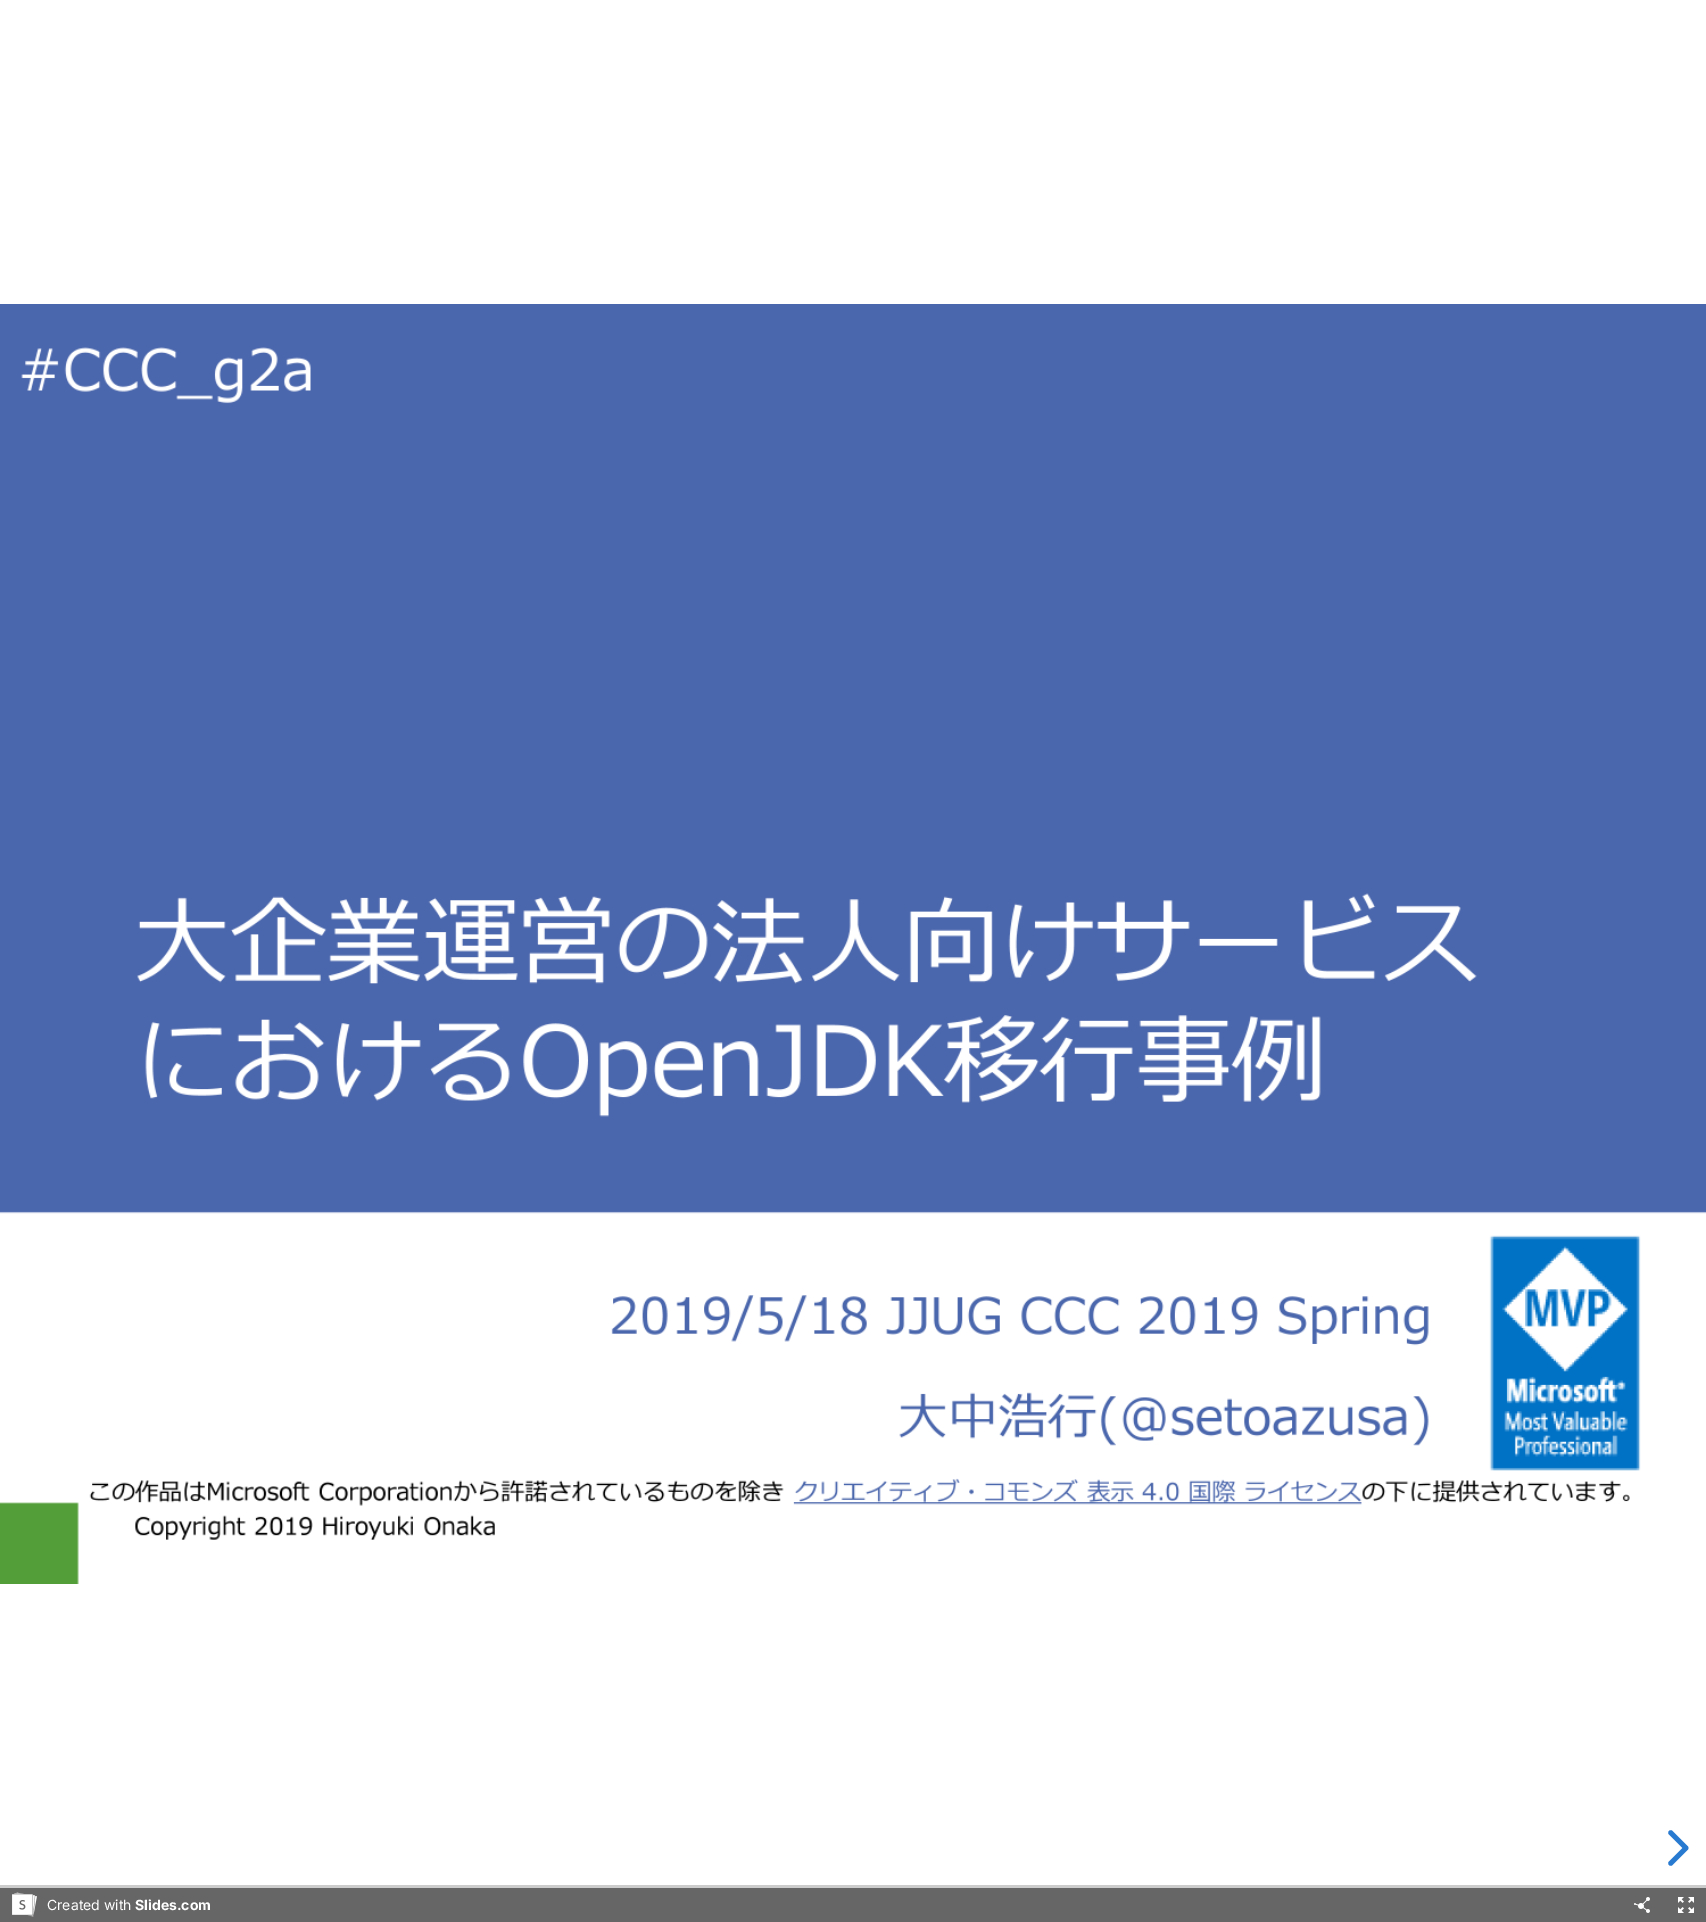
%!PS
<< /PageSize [1706 1922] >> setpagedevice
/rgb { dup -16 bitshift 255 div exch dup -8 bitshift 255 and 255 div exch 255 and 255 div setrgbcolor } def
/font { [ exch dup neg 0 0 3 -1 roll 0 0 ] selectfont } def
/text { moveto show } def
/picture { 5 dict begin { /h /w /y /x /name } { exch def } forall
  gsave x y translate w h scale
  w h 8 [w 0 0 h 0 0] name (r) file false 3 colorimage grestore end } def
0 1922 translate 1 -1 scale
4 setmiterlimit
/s1 { /Inter-Regular 14 font 16#FFFFFF rgb } def
/s2 { /Inter-Bold 14 font 16#FFFFFF rgb } def
16#FFFFFF rgb
0 0 1706 1922 rectfill
(pic1.raw) 0 304 1706 1280 picture
16#287AD1 rgb
1684 1849.5 moveto 1669 1834.5 lineto 1668 1833.5 1668 1832 1669 1831 curveto 1670 1830 1671.5 1830 1672.5 1831 curveto 1687.5 1846 lineto 1688.5 1847 1688.5 1848.5 1687.5 1849.5 curveto 1686.5 1850.5 1685 1850.5 1684 1849.5 curveto closepath fill
1687.5 1850 moveto 1672.5 1865 lineto 1671.5 1866 1670 1866 1669 1865 curveto 1668 1864 1668 1862.5 1669 1861.5 curveto 1684 1846.5 lineto 1685 1845.5 1686.5 1845.5 1687.5 1846.5 curveto 1688.5 1847.5 1688.5 1849 1687.5 1850 curveto closepath fill
16#CCCCCC rgb
0 1885 1706 3 rectfill
16#666666 rgb
0 1888 1706 34 rectfill
(pic2.raw) 12 1892 25 25 picture
s1
(Created with) 47 1910 text
s2
(Slides.com) 135 1910 text
(pic3.raw) 1634 1897 16 16 picture
(pic4.raw) 1678 1897 16 16 picture
showpage
